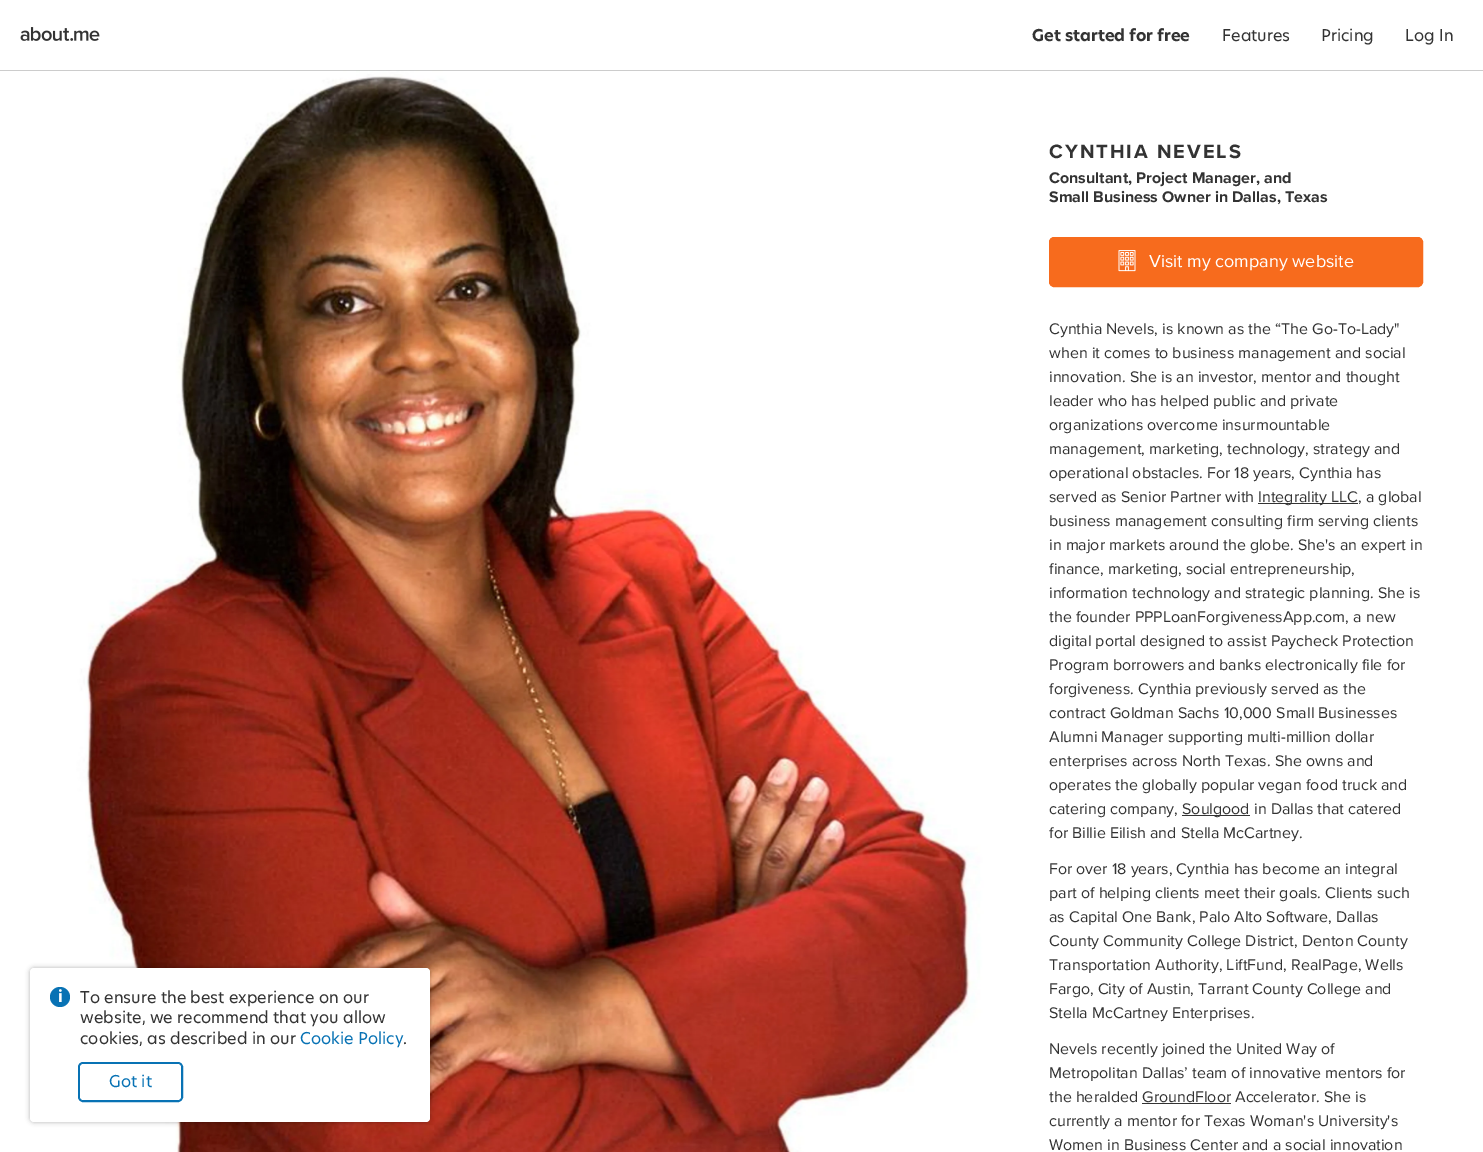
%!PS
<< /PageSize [1483 1152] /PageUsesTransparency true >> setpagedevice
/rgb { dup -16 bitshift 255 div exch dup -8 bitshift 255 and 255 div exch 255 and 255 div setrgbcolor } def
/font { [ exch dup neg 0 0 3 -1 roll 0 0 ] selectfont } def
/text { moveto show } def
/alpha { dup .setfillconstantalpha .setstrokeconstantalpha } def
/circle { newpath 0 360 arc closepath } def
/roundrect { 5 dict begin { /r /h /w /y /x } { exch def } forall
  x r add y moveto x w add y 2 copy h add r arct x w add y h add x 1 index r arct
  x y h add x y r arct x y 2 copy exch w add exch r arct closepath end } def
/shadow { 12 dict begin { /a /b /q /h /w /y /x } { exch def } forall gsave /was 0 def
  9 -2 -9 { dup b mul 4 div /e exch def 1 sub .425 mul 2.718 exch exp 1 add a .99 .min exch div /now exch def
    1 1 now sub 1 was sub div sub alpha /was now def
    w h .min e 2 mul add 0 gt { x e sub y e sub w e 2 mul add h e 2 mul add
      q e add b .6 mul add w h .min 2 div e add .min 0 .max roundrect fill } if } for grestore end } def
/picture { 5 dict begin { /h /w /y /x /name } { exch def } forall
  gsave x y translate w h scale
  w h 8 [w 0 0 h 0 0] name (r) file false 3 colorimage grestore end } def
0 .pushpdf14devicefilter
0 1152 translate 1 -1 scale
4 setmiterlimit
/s1 { /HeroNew-Regular 16 font 16#333333 rgb } def
/s2 { /HeroNew-Regular 16 font 16#0872B4 rgb } def
/s3 { /HeroNew-Bold 16 font 16#333333 rgb } def
/s4 { /ProximaNova-Bold 16 font 16#333333 rgb } def
/s5 { /ProximaNova-Regular 18 font 16#FFFFFF rgb } def
/s6 { /ProximaNova-Regular 16 font 16#333333 rgb } def
16#FFFFFF rgb
0 0 1483 1152 rectfill
(pic3.raw) 0 70 989 1082 picture
16#000000 rgb
30 968 400 154 4 2.5 0.3 shadow
16#FFFFFF rgb
30 968 400 154 4 roundrect fill
16#0872B4 rgb
60 997 10 circle fill
(pic1.raw) 59 989 3 13 picture
s1
(To ensure the best experience on our) 80 1003 text
(website, we recommend that you allow) 80 1023 text
(cookies, as described in our) 80 1044 text
s2
(Cookie Policy) 300 1044 text
s1
(.) 403 1044 text
16#0872B4 rgb
0.8 setlinewidth
79.4 1063.4 102.2 37.2 3.6 roundrect stroke
1 setlinewidth
78.5 1062.5 104 39 4.5 roundrect stroke
(Got it) 109 1087 text
0.2 alpha
16#000000 rgb
0 70 1483 1 rectfill
1 alpha
(pic2.raw) 20 27 80 14 picture
s3
(Get started for free) 1032 41 text
s1
(Features) 1222 41 text
(Pricing) 1321 41 text
(Log In) 1405 41 text
/ProximaNova-Bold 20 font
1049 158 moveto 2 0 (CYNTHIA NEVELS) ashow
s4
(Consultant, Project Manager, and) 1049 183 text
(Small Business Owner in Dallas, Texas) 1049 202 text
16#F76B1D rgb
1049.5 237.5 373 49 4.5 roundrect gsave fill grestore
stroke
(pic4.raw) 1118 250 18 22 picture
s5
(Visit my company website) 1149 267 text
s6
(Cynthia Nevels, is known as the “The Go-To-Lady") 1049 334 text
(when it comes to business management and social) 1049 358 text
(innovation. She is an investor, mentor and thought) 1049 382 text
(leader who has helped public and private) 1049 406 text
(organizations overcome insurmountable) 1049 430 text
(management, marketing, technology, strategy and) 1049 454 text
(operational obstacles. For 18 years, Cynthia has) 1049 478 text
(served as Senior Partner with) 1049 502 text
1258 503 100 1 rectfill
(Integrality LLC) 1258 502 text
(, a global) 1358 502 text
(business management consulting firm serving clients) 1049 526 text
(in major markets around the globe. She's an expert in) 1049 550 text
(finance, marketing, social entrepreneurship,) 1049 574 text
(information technology and strategic planning. She is) 1049 598 text
(the founder PPPLoanForgivenessApp.com, a new) 1049 622 text
(digital portal designed to assist Paycheck Protection) 1049 646 text
(Program borrowers and banks electronically file for) 1049 670 text
(forgiveness. Cynthia previously served as the) 1049 694 text
(contract Goldman Sachs 10,000 Small Businesses) 1049 718 text
(Alumni Manager supporting multi-million dollar) 1049 742 text
(enterprises across North Texas. She owns and) 1049 766 text
(operates the globally popular vegan food truck and) 1049 790 text
(catering company,) 1049 814 text
1182 815 68 1 rectfill
(Soulgood) 1182 814 text
(in Dallas that catered) 1254 814 text
(for Billie Eilish and Stella McCartney.) 1049 838 text
(For over 18 years, Cynthia has become an integral) 1049 874 text
(part of helping clients meet their goals. Clients such) 1049 898 text
(as Capital One Bank, Palo Alto Software, Dallas) 1049 922 text
(County Community College District, Denton County) 1049 946 text
(Transportation Authority, LiftFund, RealPage, Wells) 1049 970 text
(Fargo, City of Austin, Tarrant County College and) 1049 994 text
(Stella McCartney Enterprises.) 1049 1018 text
(Nevels recently joined the United Way of) 1049 1054 text
(Metropolitan Dallas’ team of innovative mentors for) 1049 1078 text
(the heralded GroundFloor) 1049 1102 text
(Accelerator. She is) 1235 1102 text
1142 1103 89 1 rectfill
(currently a mentor for Texas Woman's University's) 1049 1126 text
(Women in Business Center and a social innovation) 1049 1150 text
.poppdf14devicefilter showpage
